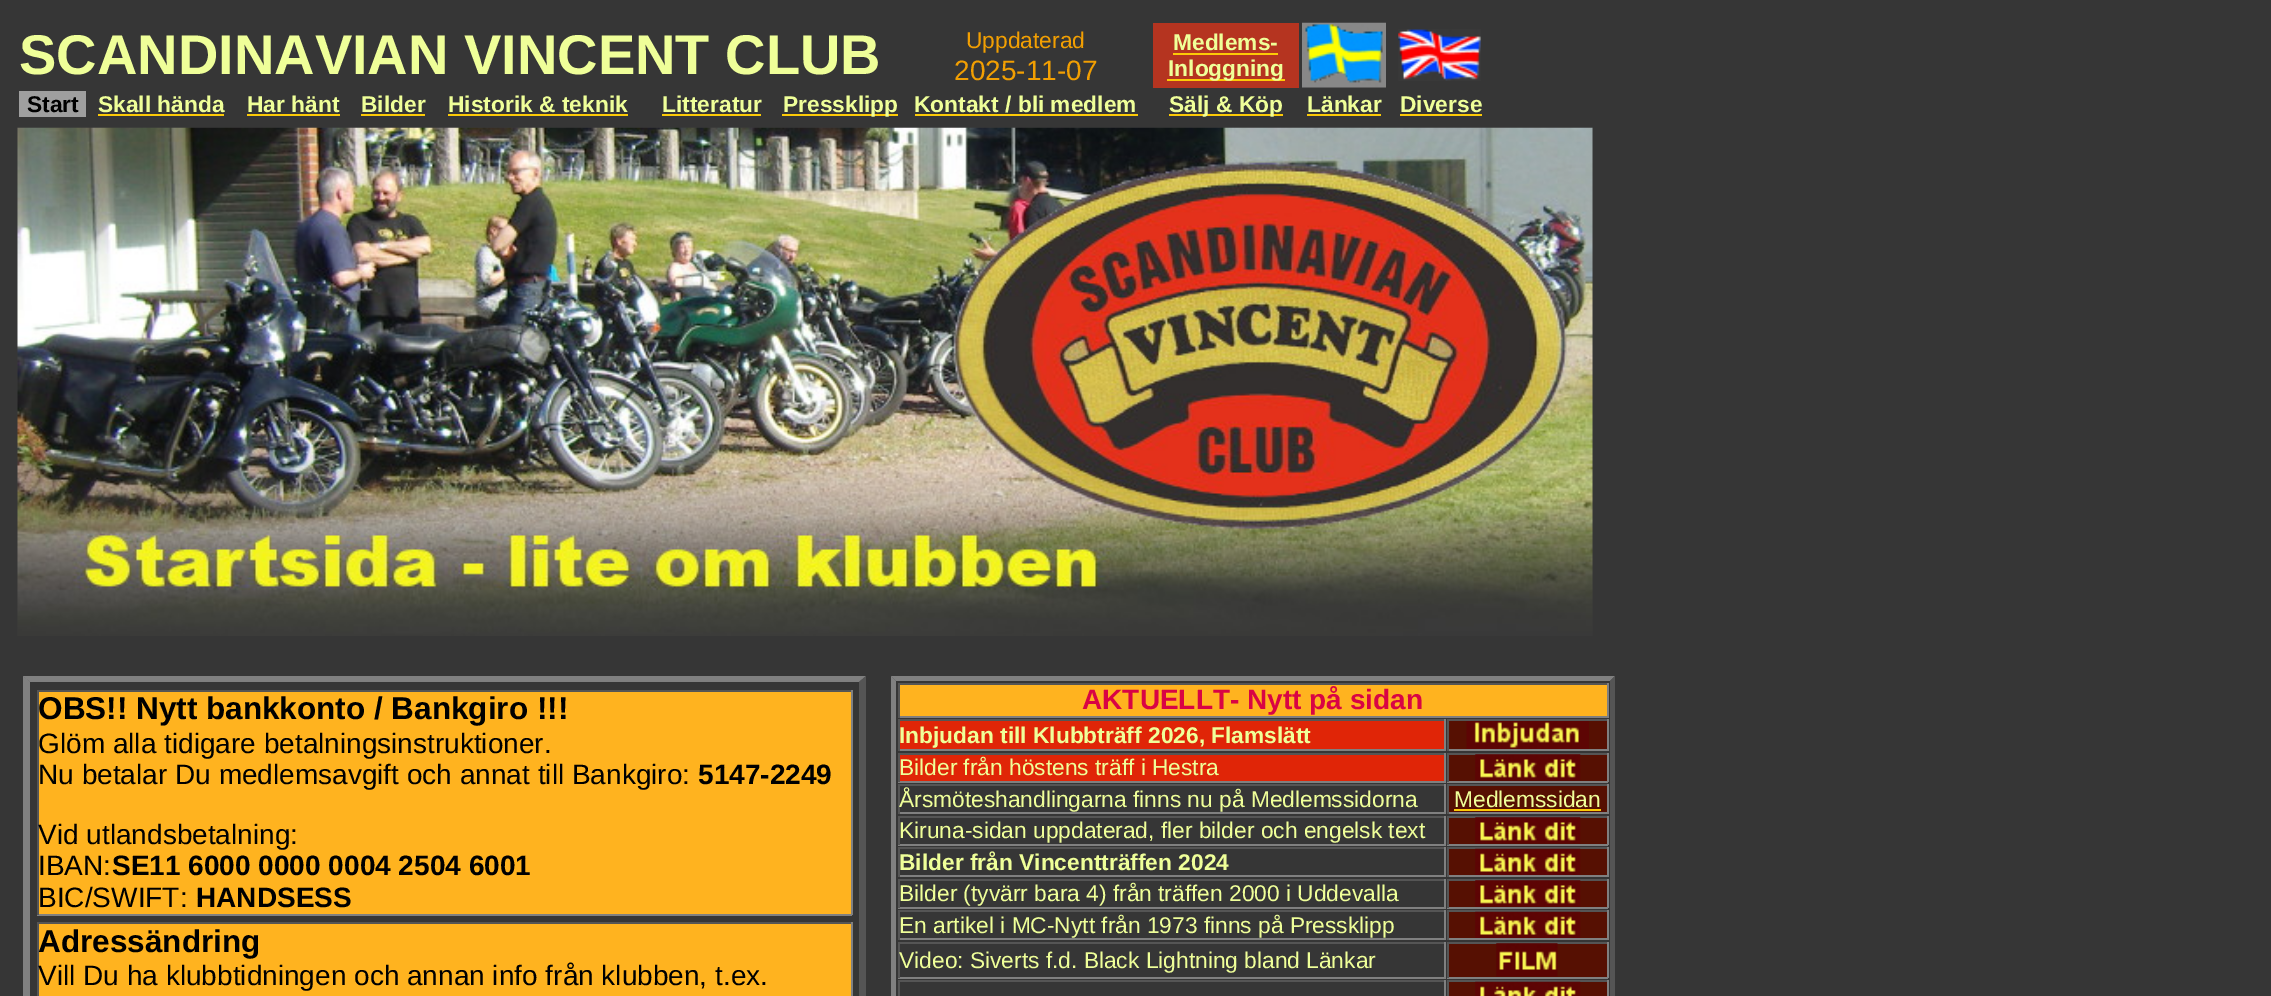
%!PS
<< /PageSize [2271 996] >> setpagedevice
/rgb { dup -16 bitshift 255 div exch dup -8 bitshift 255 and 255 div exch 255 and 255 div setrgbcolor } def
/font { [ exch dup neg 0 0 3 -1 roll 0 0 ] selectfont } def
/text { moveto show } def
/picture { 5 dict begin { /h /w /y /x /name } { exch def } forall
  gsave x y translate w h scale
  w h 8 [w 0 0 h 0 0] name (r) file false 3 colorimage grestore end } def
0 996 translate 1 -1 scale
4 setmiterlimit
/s1 { /LiberationSans-Bold 56 font 16#EFFF99 rgb } def
/s2 { /LiberationSans-Regular 22.75 font 16#F29F02 rgb } def
/s3 { /LiberationSans-Regular 28 font 16#F29F02 rgb } def
/s4 { /LiberationSans-Bold 22.75 font 16#EFFF99 rgb } def
/s5 { /LiberationSans-Bold 22.75 font 16#000000 rgb } def
/s6 { /LiberationSans-Bold 31.5 font 16#000000 rgb } def
/s7 { /LiberationSans-Regular 28 font 16#000000 rgb } def
/s8 { /LiberationSans-Bold 28 font 16#000000 rgb } def
/s9 { /LiberationSans-Bold 28 font 16#D90444 rgb } def
/s10 { /LiberationSans-Regular 22.75 font 16#EFFF99 rgb } def
16#363636 rgb
0 0 2271 996 rectfill
s1
(SCANDINAVIAN VINCENT CLUB) 19 74 text
s2
(Uppdaterad) 966 48 text
s3
(2025-11-07) 954 80 text
16#B53420 rgb
1153 23 146 65 rectfill
s4
(Medlems-) 1173 50 text
16#FCCA07 rgb
1173 53 105 2 rectfill
1167 79 118 2 rectfill
s4
(Inloggning) 1168 76 text
(pic1.raw) 1302 22 84 66 picture
(pic2.raw) 1398 29 83 52 picture
16#9F9F9F rgb
19 91 67 26 rectfill
s5
(Start) 27 112 text
s4
(Skall hända) 98 112 text
16#FCCA07 rgb
98 114 126 2 rectfill
s4
(Har hänt) 247 112 text
16#FCCA07 rgb
247 114 93 2 rectfill
s4
(Bilder) 361 112 text
16#FCCA07 rgb
361 114 64 2 rectfill
s4
(Historik & teknik) 448 112 text
16#FCCA07 rgb
448 114 180 2 rectfill
s4
(Litteratur) 662 112 text
16#FCCA07 rgb
662 114 99 2 rectfill
782 114 116 2 rectfill
s4
(Pressklipp) 783 112 text
(Kontakt / bli medlem) 914 112 text
16#FCCA07 rgb
915 114 223 2 rectfill
1169 114 114 2 rectfill
s4
(Sälj & Köp) 1169 112 text
(Länkar) 1307 112 text
16#FCCA07 rgb
1307 114 74 2 rectfill
s4
(Diverse) 1400 112 text
16#FCCA07 rgb
1400 114 82 2 rectfill
(pic3.raw) 17 127 1576 509 picture
16#808080 rgb
23 676 moveto 866 676 lineto 859 682 lineto 30 682 lineto closepath fill
16#555555 rgb
866 676 moveto 866 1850 lineto 859 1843 lineto 859 682 lineto closepath fill
16#808080 rgb
23 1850 moveto 23 676 lineto 30 682 lineto 30 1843 lineto closepath fill
16#FFB31F rgb
39 692 812 222 rectfill
16#555555 rgb
37 690 815 2 rectfill
16#808080 rgb
851 690 2 225 rectfill
37 914 815 2 rectfill
16#555555 rgb
37 690 2 225 rectfill
s6
(OBS!! Nytt bankkonto / Bankgiro !!!) 38 719 text
s7
(Glöm alla tidigare betalningsinstruktioner.) 38 753 text
(Nu betalar Du medlemsavgift och annat till Bankgiro:) 38 784 text
s8
(5147-2249) 698 784 text
s7
(Vid utlandsbetalning:) 38 844 text
(IBAN:) 38 875 text
s8
(SE11 6000 0000 0004 2504 6001) 112 875 text
s7
(BIC/SWIFT:) 38 907 text
s8
(HANDSESS) 196 907 text
16#FFB31F rgb
39 924 812 72 rectfill
16#555555 rgb
37 922 815 2 rectfill
16#808080 rgb
851 922 2 74 rectfill
16#555555 rgb
37 922 2 74 rectfill
s6
(Adressändring) 38 952 text
s7
(Vill Du ha klubbtidningen och annan info från klubben, t.ex.) 38 985 text
16#808080 rgb
891 676 moveto 1615 676 lineto 1610 681 lineto 896 681 lineto closepath fill
16#555555 rgb
1615 676 moveto 1615 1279 lineto 1610 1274 lineto 1610 681 lineto closepath fill
16#808080 rgb
891 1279 moveto 891 676 lineto 896 681 lineto 896 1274 lineto closepath fill
16#FFB31F rgb
900 685 707 31 rectfill
16#555555 rgb
898 683 710 2 rectfill
16#808080 rgb
1607 683 2 35 rectfill
898 716 710 2 rectfill
16#555555 rgb
898 683 2 35 rectfill
s9
(AKTUELLT- Nytt på sidan) 1082 709 text
16#E02507 rgb
900 721 544 28 rectfill
16#555555 rgb
898 719 548 2 rectfill
16#808080 rgb
1444 719 2 32 rectfill
898 749 548 2 rectfill
16#555555 rgb
898 719 2 32 rectfill
s4
(Inbjudan till Klubbträff 2026, Flamslätt) 899 743 text
16#561002 rgb
1449 721 158 28 rectfill
16#555555 rgb
1447 719 161 2 rectfill
16#808080 rgb
1607 719 2 32 rectfill
1447 749 161 2 rectfill
16#555555 rgb
1447 719 2 32 rectfill
(pic4.raw) 1466 721 123 28 picture
16#E02507 rgb
900 755 544 26 rectfill
16#555555 rgb
898 753 548 2 rectfill
16#808080 rgb
1444 753 2 29 rectfill
898 781 548 2 rectfill
16#555555 rgb
898 753 2 29 rectfill
s10
(Bilder från höstens träff i Hestra) 899 775 text
16#561002 rgb
1449 755 158 26 rectfill
16#555555 rgb
1447 753 161 2 rectfill
16#808080 rgb
1607 753 2 29 rectfill
1447 781 161 2 rectfill
16#555555 rgb
1447 753 2 29 rectfill
(pic5.raw) 1475 754 106 27 picture
898 784 548 2 rectfill
16#808080 rgb
1444 784 2 30 rectfill
898 812 548 2 rectfill
16#555555 rgb
898 784 2 30 rectfill
s10
(Årsmöteshandlingarna finns nu på Medlemssidorna) 899 807 text
16#561002 rgb
1449 786 158 26 rectfill
16#555555 rgb
1447 784 161 2 rectfill
16#808080 rgb
1607 784 2 30 rectfill
1447 812 161 2 rectfill
16#555555 rgb
1447 784 2 30 rectfill
s10
(Medlemssidan) 1454 807 text
16#FCCA07 rgb
1454 809 147 2 rectfill
16#555555 rgb
898 816 548 2 rectfill
16#808080 rgb
1444 816 2 29 rectfill
898 844 548 2 rectfill
16#555555 rgb
898 816 2 29 rectfill
s10
(Kiruna-sidan uppdaterad, fler bilder och engelsk text) 899 838 text
16#561002 rgb
1449 818 158 26 rectfill
16#555555 rgb
1447 816 161 2 rectfill
16#808080 rgb
1607 816 2 29 rectfill
1447 844 161 2 rectfill
16#555555 rgb
1447 816 2 29 rectfill
(pic5.raw) 1475 817 106 27 picture
898 847 548 2 rectfill
16#808080 rgb
1444 847 2 30 rectfill
898 875 548 2 rectfill
16#555555 rgb
898 847 2 30 rectfill
s4
(Bilder från Vincentträffen 2024) 899 870 text
16#561002 rgb
1449 849 158 26 rectfill
16#555555 rgb
1447 847 161 2 rectfill
16#808080 rgb
1607 847 2 30 rectfill
1447 875 161 2 rectfill
16#555555 rgb
1447 847 2 30 rectfill
(pic6.raw) 1475 848 106 27 picture
898 879 548 2 rectfill
16#808080 rgb
1444 879 2 29 rectfill
898 907 548 2 rectfill
16#555555 rgb
898 879 2 29 rectfill
s10
(Bilder \(tyvärr bara 4\) från träffen 2000 i Uddevalla) 899 901 text
16#561002 rgb
1449 881 158 26 rectfill
16#555555 rgb
1447 879 161 2 rectfill
16#808080 rgb
1607 879 2 29 rectfill
1447 907 161 2 rectfill
16#555555 rgb
1447 879 2 29 rectfill
(pic5.raw) 1475 880 106 27 picture
898 910 548 2 rectfill
16#808080 rgb
1444 910 2 30 rectfill
898 938 548 2 rectfill
16#555555 rgb
898 910 2 30 rectfill
s10
(En artikel i MC-Nytt från 1973 finns på Pressklipp) 899 933 text
16#561002 rgb
1449 912 158 26 rectfill
16#555555 rgb
1447 910 161 2 rectfill
16#808080 rgb
1607 910 2 30 rectfill
1447 938 161 2 rectfill
16#555555 rgb
1447 910 2 30 rectfill
(pic6.raw) 1475 911 106 27 picture
898 942 548 2 rectfill
16#808080 rgb
1444 942 2 36 rectfill
898 977 548 2 rectfill
16#555555 rgb
898 942 2 36 rectfill
s10
(Video: Siverts f.d. Black Lightning bland Länkar) 899 968 text
16#561002 rgb
1449 944 158 33 rectfill
16#555555 rgb
1447 942 161 2 rectfill
16#808080 rgb
1607 942 2 36 rectfill
1447 977 161 2 rectfill
16#555555 rgb
1447 942 2 36 rectfill
(pic7.raw) 1496 943 62 34 picture
898 980 548 2 rectfill
16#808080 rgb
1444 980 2 16 rectfill
16#555555 rgb
898 980 2 16 rectfill
16#561002 rgb
1449 982 158 14 rectfill
16#555555 rgb
1447 980 161 2 rectfill
16#808080 rgb
1607 980 2 16 rectfill
16#555555 rgb
1447 980 2 16 rectfill
(pic8.raw) 1475 981 106 15 picture
showpage
